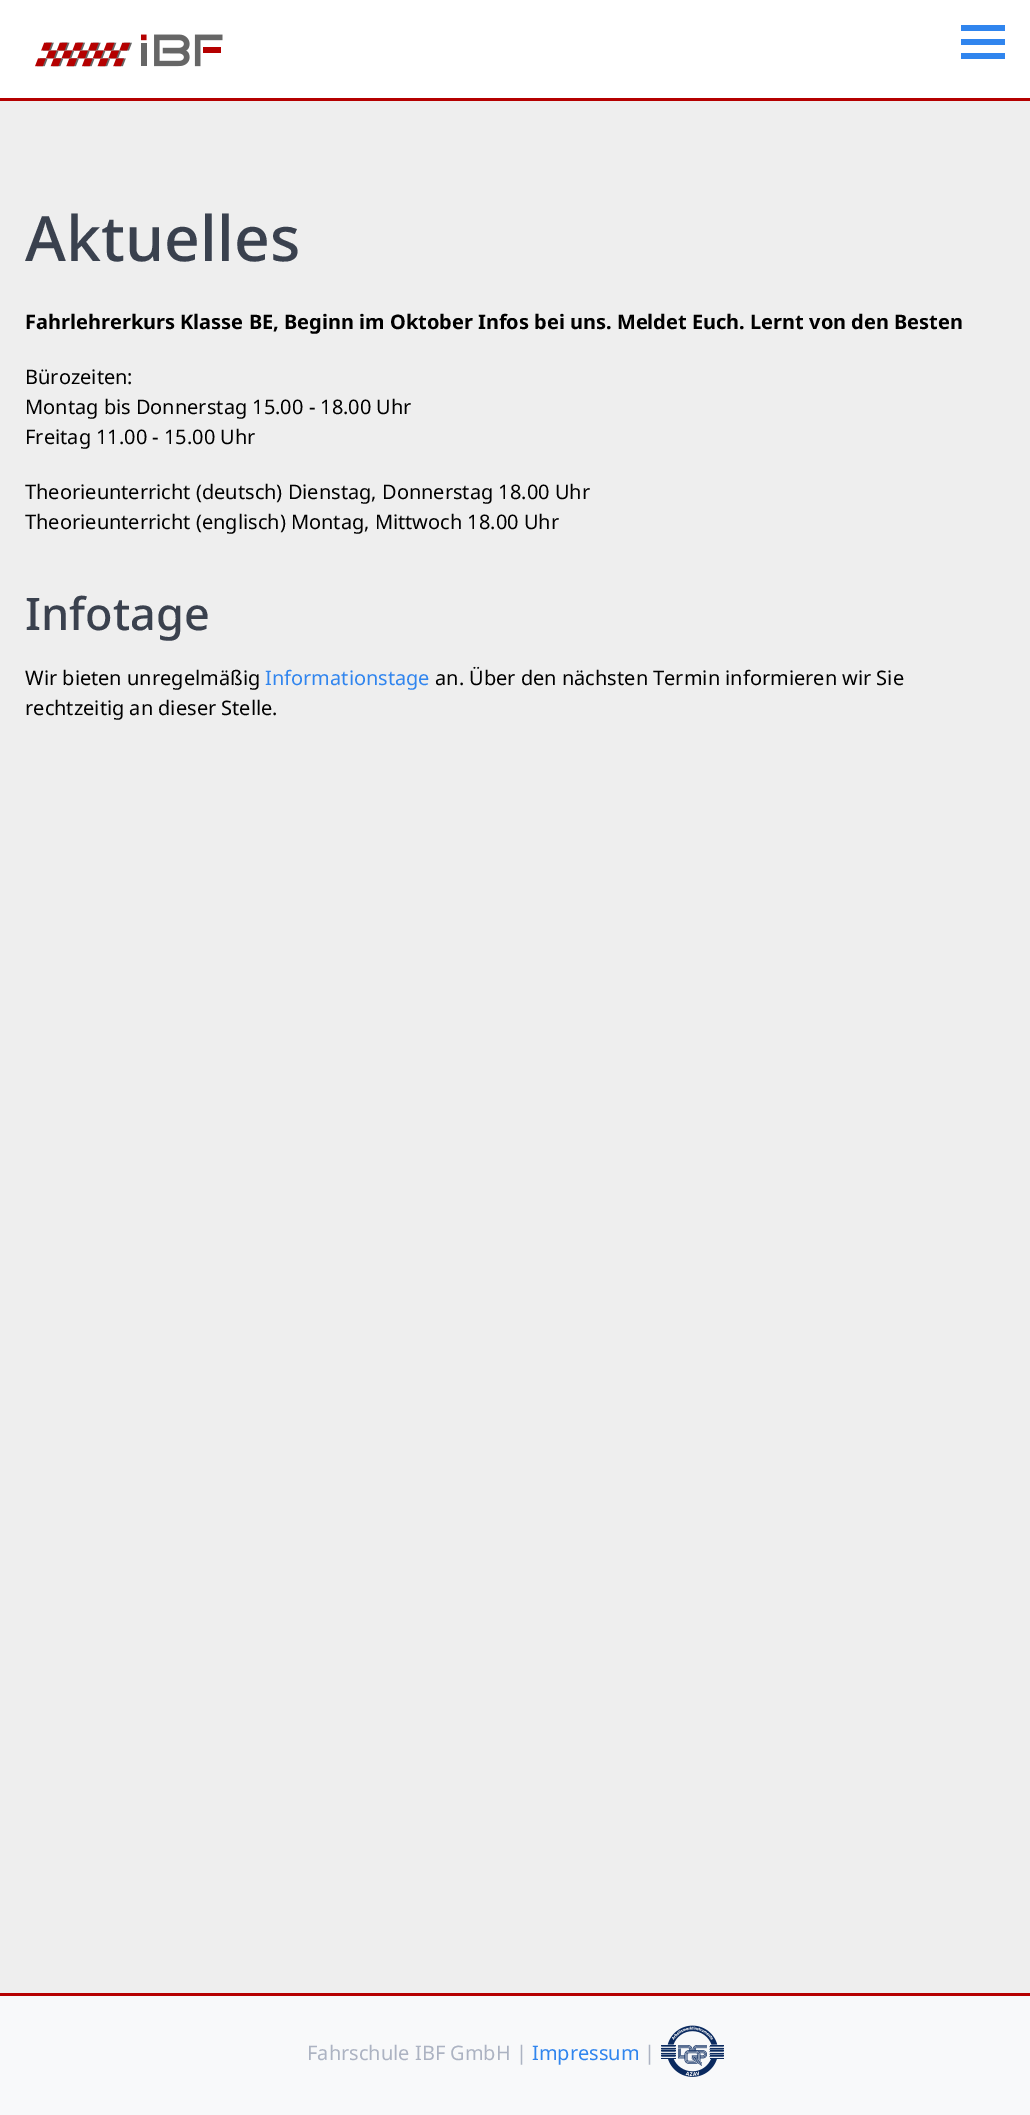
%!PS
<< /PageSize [1030 2115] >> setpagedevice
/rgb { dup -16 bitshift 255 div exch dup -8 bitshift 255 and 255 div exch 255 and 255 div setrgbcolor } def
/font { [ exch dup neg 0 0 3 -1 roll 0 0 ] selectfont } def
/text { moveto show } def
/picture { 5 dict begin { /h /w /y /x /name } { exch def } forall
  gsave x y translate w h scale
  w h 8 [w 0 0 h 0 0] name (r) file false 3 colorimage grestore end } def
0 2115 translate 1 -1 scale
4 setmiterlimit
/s1 { /NotoSans-Medium 62.5 font 16#3A414E rgb } def
/s2 { /NotoSans-Bold 20 font 16#000000 rgb } def
/s3 { /NotoSans-Regular 20 font 16#000000 rgb } def
/s4 { /NotoSans-Medium 45 font 16#3A414E rgb } def
/s5 { /NotoSans-Regular 20 font 16#3085EE rgb } def
/s6 { /NotoSans-Regular 20 font 16#ACB3C2 rgb } def
16#EEEEEE rgb
0 0 1030 2115 rectfill
16#FFFFFF rgb
0 0 1030 98 rectfill
16#B50000 rgb
0 98 1030 3 rectfill
(pic1.raw) 35 34 188 33 picture
16#3085EE rgb
961 25 44 6 rectfill
961 39 44 6 rectfill
961 53 44 6 rectfill
s1
(Aktuelles) 25 261 text
s2
(Fahrlehrerkurs Klasse BE, Beginn im Oktober Infos bei uns. Meldet Euch. Lernt von den Besten) 25 329 text
s3
(Bürozeiten:) 25 384 text
(Montag bis Donnerstag 15.00 - 18.00 Uhr) 25 414 text
(Freitag 11.00 - 15.00 Uhr) 25 444 text
(Theorieunterricht \(deutsch\) Dienstag, Donnerstag 18.00 Uhr) 25 499 text
(Theorieunterricht \(englisch\) Montag, Mittwoch 18.00 Uhr) 25 529 text
s4
(Infotage) 25 630 text
s3
(Wir bieten unregelmäßig) 25 685 text
s5
(Informationstage) 265 685 text
s3
(an. Über den nächsten Termin informieren wir Sie) 435 685 text
(rechtzeitig an dieser Stelle.) 25 715 text
16#F8F9FA rgb
0 1996 1030 119 rectfill
16#B50000 rgb
0 1993 1030 3 rectfill
s6
(Fahrschule IBF GmbH |) 307 2060 text
s5
(Impressum) 532 2060 text
s6
(|) 644 2060 text
(pic2.raw) 661 2025 63 52 picture
showpage
